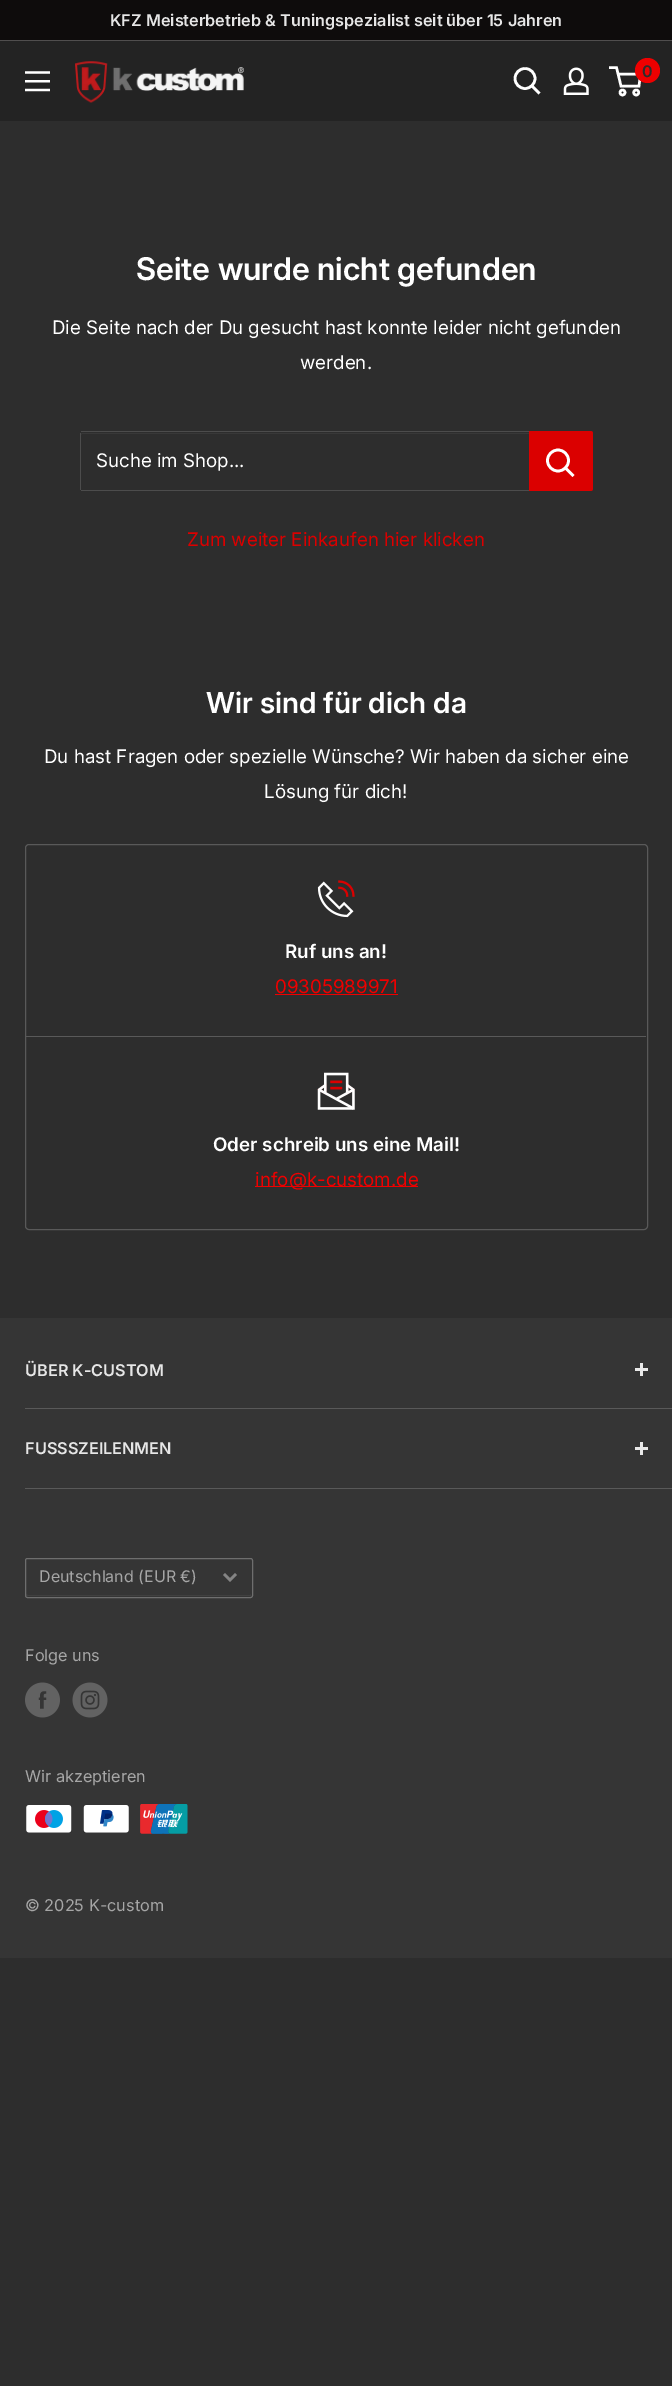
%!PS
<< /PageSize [672 2386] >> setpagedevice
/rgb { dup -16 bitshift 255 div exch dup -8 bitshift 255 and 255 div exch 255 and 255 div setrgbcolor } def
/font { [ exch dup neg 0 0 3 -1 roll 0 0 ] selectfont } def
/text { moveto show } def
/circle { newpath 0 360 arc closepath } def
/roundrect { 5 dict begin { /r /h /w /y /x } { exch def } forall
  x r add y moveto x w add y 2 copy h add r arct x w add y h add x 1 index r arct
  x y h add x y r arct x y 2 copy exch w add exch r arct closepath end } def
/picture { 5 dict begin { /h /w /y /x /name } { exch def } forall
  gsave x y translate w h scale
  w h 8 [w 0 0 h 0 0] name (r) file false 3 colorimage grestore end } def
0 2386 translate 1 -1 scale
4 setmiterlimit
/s1 { /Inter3-SemiBold 16.25 font 16#E6E6E6 rgb } def
/s2 { /Inter3-SemiBold 16 font 16#2D2D2D rgb } def
/s3 { /Inter-SemiBold 31.25 font 16#FFFFFF rgb } def
/s4 { /Inter-Regular 18.75 font 16#FFFFFF rgb } def
/s5 { /Inter-Regular 18.75 font 16#DB0000 rgb } def
/s6 { /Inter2-SemiBold 28.75 font 16#FFFFFF rgb } def
/s7 { /Inter3-SemiBold 18.75 font 16#FFFFFF rgb } def
/s8 { /Inter-Regular 18.75 font 16#EE0000 rgb } def
/s9 { /Inter2-Regular 16 font 16#A6A6A6 rgb } def
/s10 { /Inter2-Regular 16.25 font 16#A6A6A6 rgb } def
16#2D2D2D rgb
0 0 672 2386 rectfill
16#0E0C0C rgb
0 0 672 40 rectfill
16#504E4E rgb
0 40 672 1 rectfill
s1
(KFZ Meisterbetrieb & Tuningspezialist seit über 15 Jahren) 110 26 text
16#232323 rgb
0 41 672 80 rectfill
(pic1.raw) 25 71 25 21 picture
(pic2.raw) 75 61 169 42 picture
16#FFFFFF rgb
2.6 setlinewidth
2 setlinecap
538.5 92.5 moveto 532 86 lineto stroke
0 setlinecap
525 78.5 10 circle stroke
(pic3.raw) 563 67 26 28 picture
2.5 setlinewidth
622.5 92.5 2.5 circle stroke
636.2 92.5 2.5 circle stroke
618 74 moveto 640.5 74 lineto 639 86 lineto 621 86 lineto 616.5 67.5 lineto 609 67.5 lineto stroke
16#EE0000 rgb
647.5 70.5 12.5 circle fill
s2
(0) 642 77 text
s3
(Seite wurde nicht gefunden) 136 280 text
s4
(Die Seite nach der Du gesucht hast konnte leider nicht gefunden) 52 334 text
(werden.) 300 369 text
16#383838 rgb
82 434 moveto 529 434 lineto 529 433 lineto 82 433 lineto 81 434 lineto 81 435 lineto closepath fill
16#4C4C4C rgb
81 431 448 1 rectfill
81 490 448 1 rectfill
80 433 1 57 rectfill
s4
(Suche im Shop...) 96 467 text
16#DB0000 rgb
529 431 moveto 590.5 431 lineto 592 431 593 432 593 433.5 curveto 593 488.5 lineto 593 490 592 491 590.5 491 curveto 529 491 lineto closepath fill
16#FFFFFF rgb
2.7 setlinewidth
2 setlinecap
572.5 475 moveto 565.5 468 lineto stroke
0 setlinecap
558 460.5 10.5 circle stroke
s5
(Zum weiter Einkaufen hier klicken) 187 546 text
s6
(Wir sind für dich da) 206 713 text
s4
(Du hast Fragen oder spezielle Wünsche? Wir haben da sicher eine) 44 763 text
(Lösung für dich!) 264 798 text
16#595959 rgb
1 setlinewidth
25.5 844.5 622 385 3.5 roundrect stroke
(pic4.raw) 317 880 38 38 picture
s7
(Ruf uns an!) 285 958 text
s8
(09305989971) 275 993 text
275 994 123 1 rectfill
16#595959 rgb
26 1036 620 1 rectfill
(pic5.raw) 317 1072 38 38 picture
s7
(Oder schreib uns eine Mail!) 213 1151 text
16#EE0000 rgb
255 1186 163 1 rectfill
s8
(info@k-custom.de) 255 1186 text
16#353535 rgb
0 1318 672 640 rectfill
16#595959 rgb
25 1408 647 1 rectfill
s1
(ÜBER K-CUSTOM) 25 1376 text
16#E9E9E9 rgb
640 1363 3 13 rectfill
635 1368 13 3 rectfill
16#595959 rgb
25 1488 647 1 rectfill
s1
(FUSSSZEILENMEN) 25 1454 text
16#E9E9E9 rgb
640 1442 3 13 rectfill
635 1447 13 3 rectfill
16#404040 rgb
26 1594 moveto 26 1596 lineto 250 1596 lineto 251 1596 251 1595 251 1594 curveto 250 1595 lineto 28 1595 lineto closepath fill
16#6E6E6E rgb
25.5 1558.5 227 39 2 roundrect stroke
s9
(Deutschland \(EUR €\)) 39 1582 text
16#848484 rgb
2.5 setlinewidth
2 setlinecap
235 1575 moveto 230 1580 lineto 225 1575 lineto stroke
s10
(Folge uns) 25 1661 text
(pic6.raw) 25 1682 35 36 picture
(pic7.raw) 72 1682 36 36 picture
(Wir akzeptieren) 25 1782 text
(pic8.raw) 26 1805 46 28 picture
(pic9.raw) 83 1805 46 28 picture
(pic10.raw) 140 1804 48 30 picture
(© 2025 K-custom) 25 1911 text
showpage
